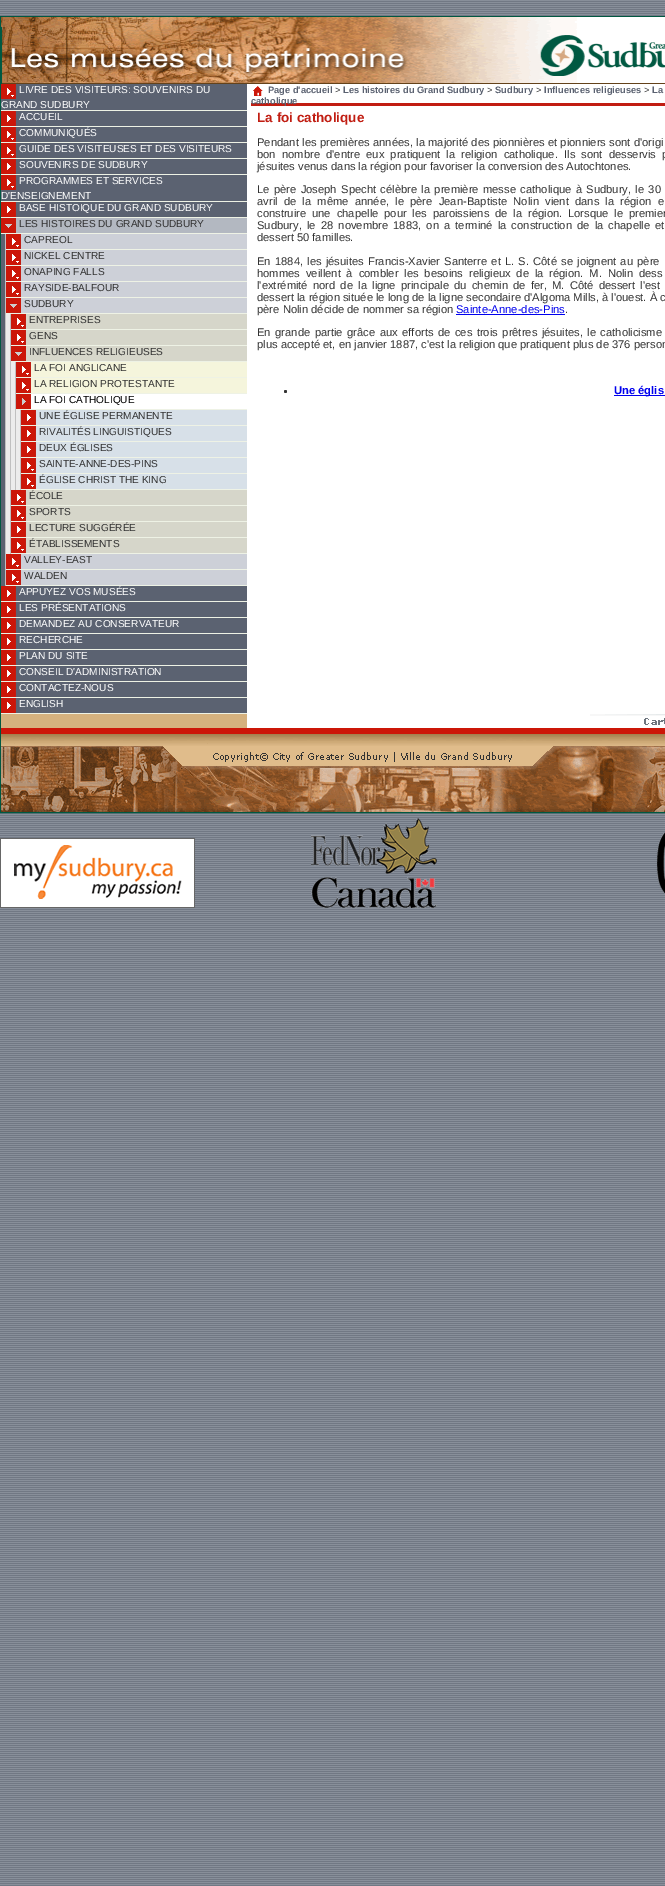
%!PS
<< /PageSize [665 1886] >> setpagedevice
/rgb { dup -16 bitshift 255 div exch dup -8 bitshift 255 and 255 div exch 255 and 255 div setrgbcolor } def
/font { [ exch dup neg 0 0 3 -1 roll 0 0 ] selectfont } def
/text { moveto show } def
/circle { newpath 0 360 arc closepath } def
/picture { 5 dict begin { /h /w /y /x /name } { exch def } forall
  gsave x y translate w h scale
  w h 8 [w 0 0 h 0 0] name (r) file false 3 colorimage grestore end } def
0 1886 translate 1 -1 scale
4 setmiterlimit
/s1 { /LiberationSans-Regular 10.1 font 16#FFFFFF rgb } def
/s2 { /LiberationSans-Regular 10.1 font 16#333333 rgb } def
/s3 { /LiberationSans-Regular 10.1 font 16#000000 rgb } def
/s4 { /LiberationSans-Bold 9.3 font 16#5B6271 rgb } def
/s5 { /LiberationSans-Regular 9.3 font 16#333333 rgb } def
/s6 { /LiberationSans-Bold 13.5 font 16#C11D12 rgb } def
/s7 { /LiberationSans-Regular 11.2 font 16#333333 rgb } def
/s8 { /LiberationSans-Regular 11.2 font 16#0000EE rgb } def
/s9 { /LiberationSans-Bold 11.2 font 16#0000EE rgb } def
16#FFFFFF rgb
0 0 665 1886 rectfill
(pic1.raw) 0 0 665 1886 picture
16#005841 rgb
0.5 16.5 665 796 rectstroke
(pic2.raw) 1 17 664 67 picture
16#5B6271 rgb
1 84 246 629 rectfill
16#EEF2E5 rgb
1 110 246 1 rectfill
(pic3.raw) 1 84 15 15 picture
s1
(LIVRE DES VISITEURS: SOUVENIRS DU) 19 93 text
(GRAND SUDBURY) 1 108 text
16#EEF2E5 rgb
1 126 246 1 rectfill
(pic4.raw) 1 111 15 15 picture
s1
(ACCUEIL) 19 120 text
16#EEF2E5 rgb
1 142 246 1 rectfill
(pic3.raw) 1 127 15 15 picture
s1
(COMMUNIQUÉS) 19 136 text
16#EEF2E5 rgb
1 158 246 1 rectfill
(pic3.raw) 1 143 15 15 picture
s1
(GUIDE DES VISITEUSES ET DES VISITEURS) 19 152 text
16#EEF2E5 rgb
1 174 246 1 rectfill
(pic4.raw) 1 159 15 15 picture
s1
(SOUVENIRS DE SUDBURY) 19 168 text
16#EEF2E5 rgb
1 201 246 1 rectfill
(pic3.raw) 1 175 15 15 picture
s1
(PROGRAMMES ET SERVICES) 19 184 text
(D'ENSEIGNEMENT) 1 199 text
16#EEF2E5 rgb
1 217 246 1 rectfill
(pic4.raw) 1 202 15 15 picture
s1
(BASE HISTOIQUE DU GRAND SUDBURY) 19 211 text
16#B3B8C1 rgb
16 218 231 15 rectfill
16#EEF2E5 rgb
1 233 246 1 rectfill
(pic5.raw) 1 218 15 15 picture
s2
(LES HISTOIRES DU GRAND SUDBURY) 19 227 text
16#ECECEC rgb
6 314 14 240 rectfill
16#C0C0C0 rgb
5 234 1 352 rectfill
16#CDD0D8 rgb
21 234 226 15 rectfill
16#EEF2E5 rgb
6 249 241 1 rectfill
(pic3.raw) 6 234 15 15 picture
s2
(CAPREOL) 24 243 text
16#CDD0D8 rgb
21 250 226 15 rectfill
16#EEF2E5 rgb
6 265 241 1 rectfill
(pic3.raw) 6 250 15 15 picture
s2
(NICKEL CENTRE) 24 259 text
16#CDD0D8 rgb
21 266 226 15 rectfill
16#EEF2E5 rgb
6 281 241 1 rectfill
(pic3.raw) 6 266 15 15 picture
s2
(ONAPING FALLS) 24 275 text
16#CDD0D8 rgb
21 282 226 15 rectfill
16#EEF2E5 rgb
6 297 241 1 rectfill
(pic3.raw) 6 282 15 15 picture
s2
(RAYSIDE-BALFOUR) 24 291 text
16#CDD0D8 rgb
21 298 226 15 rectfill
16#EEF2E5 rgb
6 313 241 1 rectfill
(pic5.raw) 6 298 15 15 picture
s2
(SUDBURY) 24 307 text
16#C0C0C0 rgb
10 314 1 240 rectfill
16#D6D6CA rgb
26 314 221 15 rectfill
16#EEF2E5 rgb
11 329 236 1 rectfill
(pic3.raw) 11 314 15 15 picture
s2
(ENTREPRISES) 29 323 text
16#D6D6CA rgb
26 330 221 15 rectfill
16#EEF2E5 rgb
11 345 236 1 rectfill
(pic3.raw) 11 330 15 15 picture
s2
(GENS) 29 339 text
16#D6D6CA rgb
26 346 221 15 rectfill
16#EEF2E5 rgb
11 361 236 1 rectfill
(pic5.raw) 11 346 15 15 picture
s2
(INFLUENCES RELIGIEUSES) 29 355 text
16#C0C0C0 rgb
15 362 1 128 rectfill
16#F5F5DC rgb
31 362 216 15 rectfill
16#EEF2E5 rgb
16 377 231 1 rectfill
(pic3.raw) 16 362 15 15 picture
s2
(LA FOI ANGLICANE) 34 371 text
16#F5F5DC rgb
31 378 216 15 rectfill
16#EEF2E5 rgb
16 393 231 1 rectfill
(pic3.raw) 16 378 15 15 picture
s2
(LA RELIGION PROTESTANTE) 34 387 text
16#FFFFFF rgb
31 394 216 15 rectfill
16#EEF2E5 rgb
16 409 231 1 rectfill
(pic6.raw) 16 394 15 15 picture
s3
(LA FOI CATHOLIQUE) 34 403 text
16#C0C0C0 rgb
20 410 1 80 rectfill
16#D7E0E8 rgb
36 410 211 15 rectfill
16#EEF2E5 rgb
21 425 226 1 rectfill
(pic4.raw) 21 410 15 15 picture
s2
(UNE ÉGLISE PERMANENTE) 39 419 text
16#D7E0E8 rgb
36 426 211 15 rectfill
16#EEF2E5 rgb
21 441 226 1 rectfill
(pic4.raw) 21 426 15 15 picture
s2
(RIVALITÉS LINGUISTIQUES) 39 435 text
16#D7E0E8 rgb
36 442 211 15 rectfill
16#EEF2E5 rgb
21 457 226 1 rectfill
(pic4.raw) 21 442 15 15 picture
s2
(DEUX ÉGLISES) 39 451 text
16#D7E0E8 rgb
36 458 211 15 rectfill
16#EEF2E5 rgb
21 473 226 1 rectfill
(pic3.raw) 21 458 15 15 picture
s2
(SAINTE-ANNE-DES-PINS) 39 467 text
16#D7E0E8 rgb
36 474 211 15 rectfill
16#EEF2E5 rgb
21 489 226 1 rectfill
(pic3.raw) 21 474 15 15 picture
s2
(ÉGLISE CHRIST THE KING) 39 483 text
16#D6D6CA rgb
26 490 221 15 rectfill
16#EEF2E5 rgb
11 505 236 1 rectfill
(pic3.raw) 11 490 15 15 picture
s2
(ÉCOLE) 29 499 text
16#D6D6CA rgb
26 506 221 15 rectfill
16#EEF2E5 rgb
11 521 236 1 rectfill
(pic3.raw) 11 506 15 15 picture
s2
(SPORTS) 29 515 text
16#D6D6CA rgb
26 522 221 15 rectfill
16#EEF2E5 rgb
11 537 236 1 rectfill
(pic4.raw) 11 522 15 15 picture
s2
(LECTURE SUGGÉRÉE) 29 531 text
16#D6D6CA rgb
26 538 221 15 rectfill
16#EEF2E5 rgb
11 553 236 1 rectfill
(pic3.raw) 11 538 15 15 picture
s2
(ÉTABLISSEMENTS) 29 547 text
16#CDD0D8 rgb
21 554 226 15 rectfill
16#EEF2E5 rgb
6 569 241 1 rectfill
(pic3.raw) 6 554 15 15 picture
s2
(VALLEY-EAST) 24 563 text
16#CDD0D8 rgb
21 570 226 15 rectfill
16#EEF2E5 rgb
6 585 241 1 rectfill
(pic3.raw) 6 570 15 15 picture
s2
(WALDEN) 24 579 text
16#EEF2E5 rgb
1 601 246 1 rectfill
(pic4.raw) 1 586 15 15 picture
s1
(APPUYEZ VOS MUSÉES) 19 595 text
16#EEF2E5 rgb
1 617 246 1 rectfill
(pic4.raw) 1 602 15 15 picture
s1
(LES PRÉSENTATIONS) 19 611 text
16#EEF2E5 rgb
1 633 246 1 rectfill
(pic4.raw) 1 618 15 15 picture
s1
(DEMANDEZ AU CONSERVATEUR) 19 627 text
16#EEF2E5 rgb
1 649 246 1 rectfill
(pic4.raw) 1 634 15 15 picture
s1
(RECHERCHE) 19 643 text
16#EEF2E5 rgb
1 665 246 1 rectfill
(pic4.raw) 1 650 15 15 picture
s1
(PLAN DU SITE) 19 659 text
16#EEF2E5 rgb
1 681 246 1 rectfill
(pic4.raw) 1 666 15 15 picture
s1
(CONSEIL D'ADMINISTRATION) 19 675 text
16#EEF2E5 rgb
1 697 246 1 rectfill
(pic4.raw) 1 682 15 15 picture
s1
(CONTACTEZ-NOUS) 19 691 text
16#EEF2E5 rgb
1 713 246 1 rectfill
(pic4.raw) 1 698 15 15 picture
s1
(ENGLISH) 19 707 text
247 84 418 644 rectfill
16#C11D12 rgb
251 103 414 3 rectfill
16#CC180A rgb
253 86 10 10 rectfill
(pic7.raw) 253 86 10 10 picture
s4
(Page d'accueil) 268 93 text
s5
(>) 335 93 text
s4
(Les histoires du Grand Sudbury) 343 93 text
s5
(>) 487 93 text
s4
(Sudbury) 495 93 text
s5
(>) 536 93 text
s4
(Influences religieuses) 544 93 text
s5
(>) 644 93 text
s4
(La) 652 93 text
(catholique) 251 104 text
s6
(La foi catholique) 257 122 text
/LiberationSans-Regular 11.2 font
16#333333 rgb
257 146 moveto 0.25 0 32 (Pendant les premières années, la majorité des pionnières et pionniers sont d'origi) widthshow
257 158 moveto 3.1 0 32 (bon nombre d'entre eux pratiquent la religion catholique. Ils sont desservis p) widthshow
(jésuites venus dans la région pour favoriser la conversion des Autochtones.) 257 170 text
257 193 moveto 1.25 0 32 (Le père Joseph Specht célèbre la première messe catholique à Sudbury, le 30) widthshow
257 205 moveto 3.1 0 32 (avril de la même année, le père Jean-Baptiste Nolin vient dans la région e) widthshow
257 217 moveto 2.75 0 32 (construire une chapelle pour les paroissiens de la région. Lorsque le premier) widthshow
257 229 moveto 2 0 32 (Sudbury, le 28 novembre 1883, on a terminé la construction de la chapelle et) widthshow
(dessert 50 familles.) 257 241 text
257 265 moveto 1.1 0 32 (En 1884, les jésuites Francis-Xavier Santerre et L. S. Côté se joignent au père) widthshow
257 277 moveto 2.75 0 32 (hommes veillent à combler les besoins religieux de la région. M. Nolin dess) widthshow
257 289 moveto 2.1 0 32 (l'extrémité nord de la ligne principale du chemin de fer, M. Côté dessert l'est) widthshow
(dessert la région située le long de la ligne secondaire d'Algoma Mills, à l'ouest. À c) 257 301 text
(père Nolin décide de nommer sa région) 257 313 text
s8
(Sainte-Anne-des-Pins) 456 313 text
456 314 109 1 rectfill
s7
(.) 565 313 text
257 336 moveto 1.4 0 32 (En grande partie grâce aux efforts de ces trois prêtres jésuites, le catholicisme) widthshow
(plus accepté et, en janvier 1887, c'est la religion que pratiquent plus de 376 person) 257 348 text
285.5 391.5 1.5 circle fill
16#0000EE rgb
614 395 51 1 rectfill
s9
(Une églis) 614 394 text
16#D5B17E rgb
1 714 246 14 rectfill
(pic8.raw) 590 714 75 11 picture
(pic9.raw) 1 728 664 84 picture
(pic10.raw) 0 838 195 70 picture
(pic11.raw) 311 818 126 90 picture
(pic12.raw) 657 832 8 61 picture
showpage
